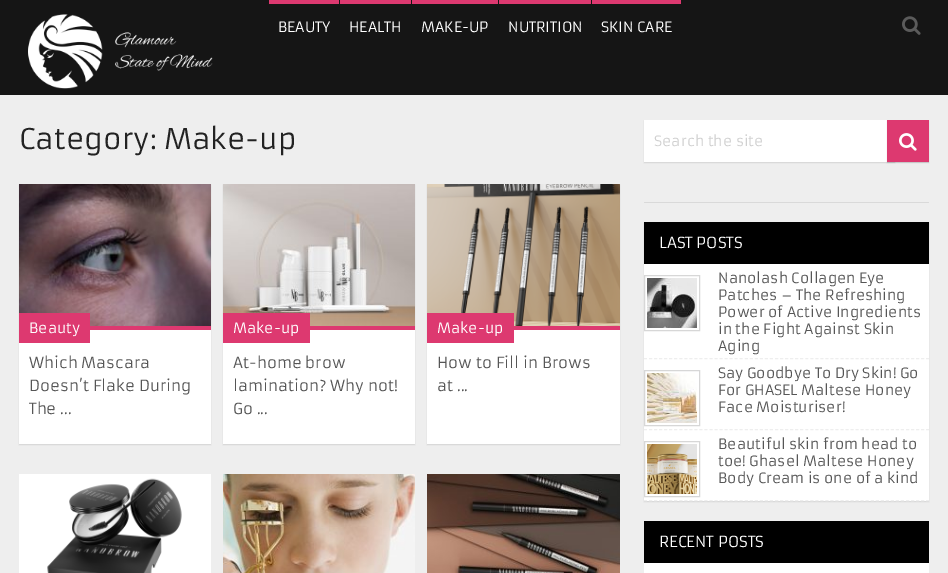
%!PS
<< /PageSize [948 573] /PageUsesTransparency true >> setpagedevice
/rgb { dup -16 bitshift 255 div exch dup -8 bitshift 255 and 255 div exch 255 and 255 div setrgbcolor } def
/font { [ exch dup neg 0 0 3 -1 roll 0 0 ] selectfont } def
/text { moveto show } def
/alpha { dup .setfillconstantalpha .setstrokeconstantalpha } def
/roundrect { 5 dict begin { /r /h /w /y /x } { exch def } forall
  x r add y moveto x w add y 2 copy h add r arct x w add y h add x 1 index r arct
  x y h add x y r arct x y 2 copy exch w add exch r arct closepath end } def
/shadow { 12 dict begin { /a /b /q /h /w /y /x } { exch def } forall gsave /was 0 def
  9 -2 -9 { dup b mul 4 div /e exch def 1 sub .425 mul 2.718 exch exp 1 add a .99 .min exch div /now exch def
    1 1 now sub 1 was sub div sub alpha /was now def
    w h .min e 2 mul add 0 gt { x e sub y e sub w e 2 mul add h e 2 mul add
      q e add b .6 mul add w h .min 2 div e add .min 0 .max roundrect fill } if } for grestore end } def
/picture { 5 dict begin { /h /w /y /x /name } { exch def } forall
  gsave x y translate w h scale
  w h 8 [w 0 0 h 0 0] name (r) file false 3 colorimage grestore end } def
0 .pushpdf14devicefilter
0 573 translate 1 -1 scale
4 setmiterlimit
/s1 { /Armata-Regular 14 font 16#FFFFFF rgb } def
/s2 { /Armata-Regular 28 font 16#222222 rgb } def
/s3 { /Armata-Regular 15 font 16#565656 rgb } def
/s4 { /Armata-Regular 14 font 16#D0D0D0 rgb } def
/s5 { /Armata-Regular 15 font 16#FFFFFF rgb } def
/s6 { /Armata-Regular 14 font 16#565656 rgb } def
16#EEEEEE rgb
0 0 948 573 rectfill
16#151515 rgb
0 0 948 95 rectfill
(pic1.raw) 28 14 185 75 picture
16#DD3970 rgb
269 0 70 4 rectfill
s1
(BEAUTY) 278 32 text
16#DD3970 rgb
340 0 71 4 rectfill
s1
(HEALTH) 349 32 text
16#DD3970 rgb
412 0 86 4 rectfill
s1
(MAKE-UP) 421 32 text
16#DD3970 rgb
499 0 92 4 rectfill
s1
(NUTRITION) 508 32 text
16#DD3970 rgb
592 0 89 4 rectfill
s1
(SKIN CARE) 601 32 text
(pic2.raw) 902 16 19 19 picture
s2
(Category: Make-up) 19 149 text
16#000000 rgb
19 185 192 260 0 0.5 0.1 shadow
16#FFFFFF rgb
19 330 192 114 rectfill
16#DD3970 rgb
90 326 121 4 rectfill
(pic3.raw) 19 184 192 142 picture
19 313 71 30 rectfill
s1
(Beauty) 29 333 text
s3
(Which Mascara) 29 368 text
(Doesn’t Flake During) 29 391 text
(The ...) 29 414 text
16#000000 rgb
223 185 192 260 0 0.5 0.1 shadow
16#FFFFFF rgb
223 330 192 114 rectfill
16#DD3970 rgb
310 326 105 4 rectfill
(pic4.raw) 223 184 192 142 picture
223 313 87 30 rectfill
s1
(Make-up) 233 333 text
s3
(At-home brow) 233 368 text
(lamination? Why not!) 233 391 text
(Go ...) 233 414 text
16#000000 rgb
427 185 193 260 0 0.5 0.1 shadow
16#FFFFFF rgb
427 330 193 114 rectfill
16#DD3970 rgb
514 326 106 4 rectfill
(pic5.raw) 427 184 193 142 picture
427 313 87 30 rectfill
s1
(Make-up) 437 333 text
s3
(How to Fill in Brows) 437 368 text
(at ...) 437 391 text
16#FFFFFF rgb
19 474 192 99 rectfill
(pic6.raw) 47 478 135 95 picture
(pic7.raw) 223 474 192 99 picture
(pic8.raw) 427 474 193 99 picture
16#000000 rgb
644 121 251 42 0 0.5 0.1 shadow
16#FFFFFF rgb
644 120 243 42 rectfill
16#000000 rgb
887 121 42 42 0 0.5 0.1 shadow
16#DD3970 rgb
887 120 42 42 rectfill
(pic9.raw) 899 133 18 18 picture
s4
(Search the site) 654 146 text
gsave
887 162 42 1 rectclip
16#000000 rgb
887 121 42 42 0 0.5 0.1 shadow
grestore
gsave
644 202 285 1 rectclip
16#000000 rgb
644 183 285 20 0 0.5 0.1 shadow
grestore
16#000000 rgb
644 223 285 279 0 0.5 0.1 shadow
644 222 285 42 rectfill
s5
(LAST POSTS) 659 248 text
644 264 285 237 rectfill
16#EEEEEE rgb
[3 2.04] 0 setdash
644 358.5 moveto 929 358.5 lineto stroke
16#D7D7D7 rgb
[] 0 setdash
644.5 275.5 55 55 rectstroke
(pic10.raw) 647 278 50 50 picture
s6
(Nanolash Collagen Eye) 718 283 text
(Patches – The Refreshing) 718 300 text
(Power of Active Ingredients) 718 317 text
(in the Fight Against Skin) 718 334 text
(Aging) 718 351 text
16#EEEEEE rgb
[3 2.04] 0 setdash
644 429.5 moveto 929 429.5 lineto stroke
16#D7D7D7 rgb
[] 0 setdash
644.5 370.5 55 55 rectstroke
(pic11.raw) 647 373 50 50 picture
s6
(Say Goodbye To Dry Skin! Go) 718 378 text
(For GHASEL Maltese Honey) 718 395 text
(Face Moisturiser!) 718 412 text
16#EEEEEE rgb
[3 2.04] 0 setdash
644 500.5 moveto 929 500.5 lineto stroke
16#D7D7D7 rgb
[] 0 setdash
644.5 441.5 55 55 rectstroke
(pic12.raw) 647 444 50 50 picture
s6
(Beautiful skin from head to) 718 449 text
(toe! Ghasel Maltese Honey) 718 466 text
(Body Cream is one of a kind) 718 483 text
16#000000 rgb
644 521 285 42 rectfill
s5
(RECENT POSTS) 659 547 text
644 563 285 10 rectfill
.poppdf14devicefilter showpage
